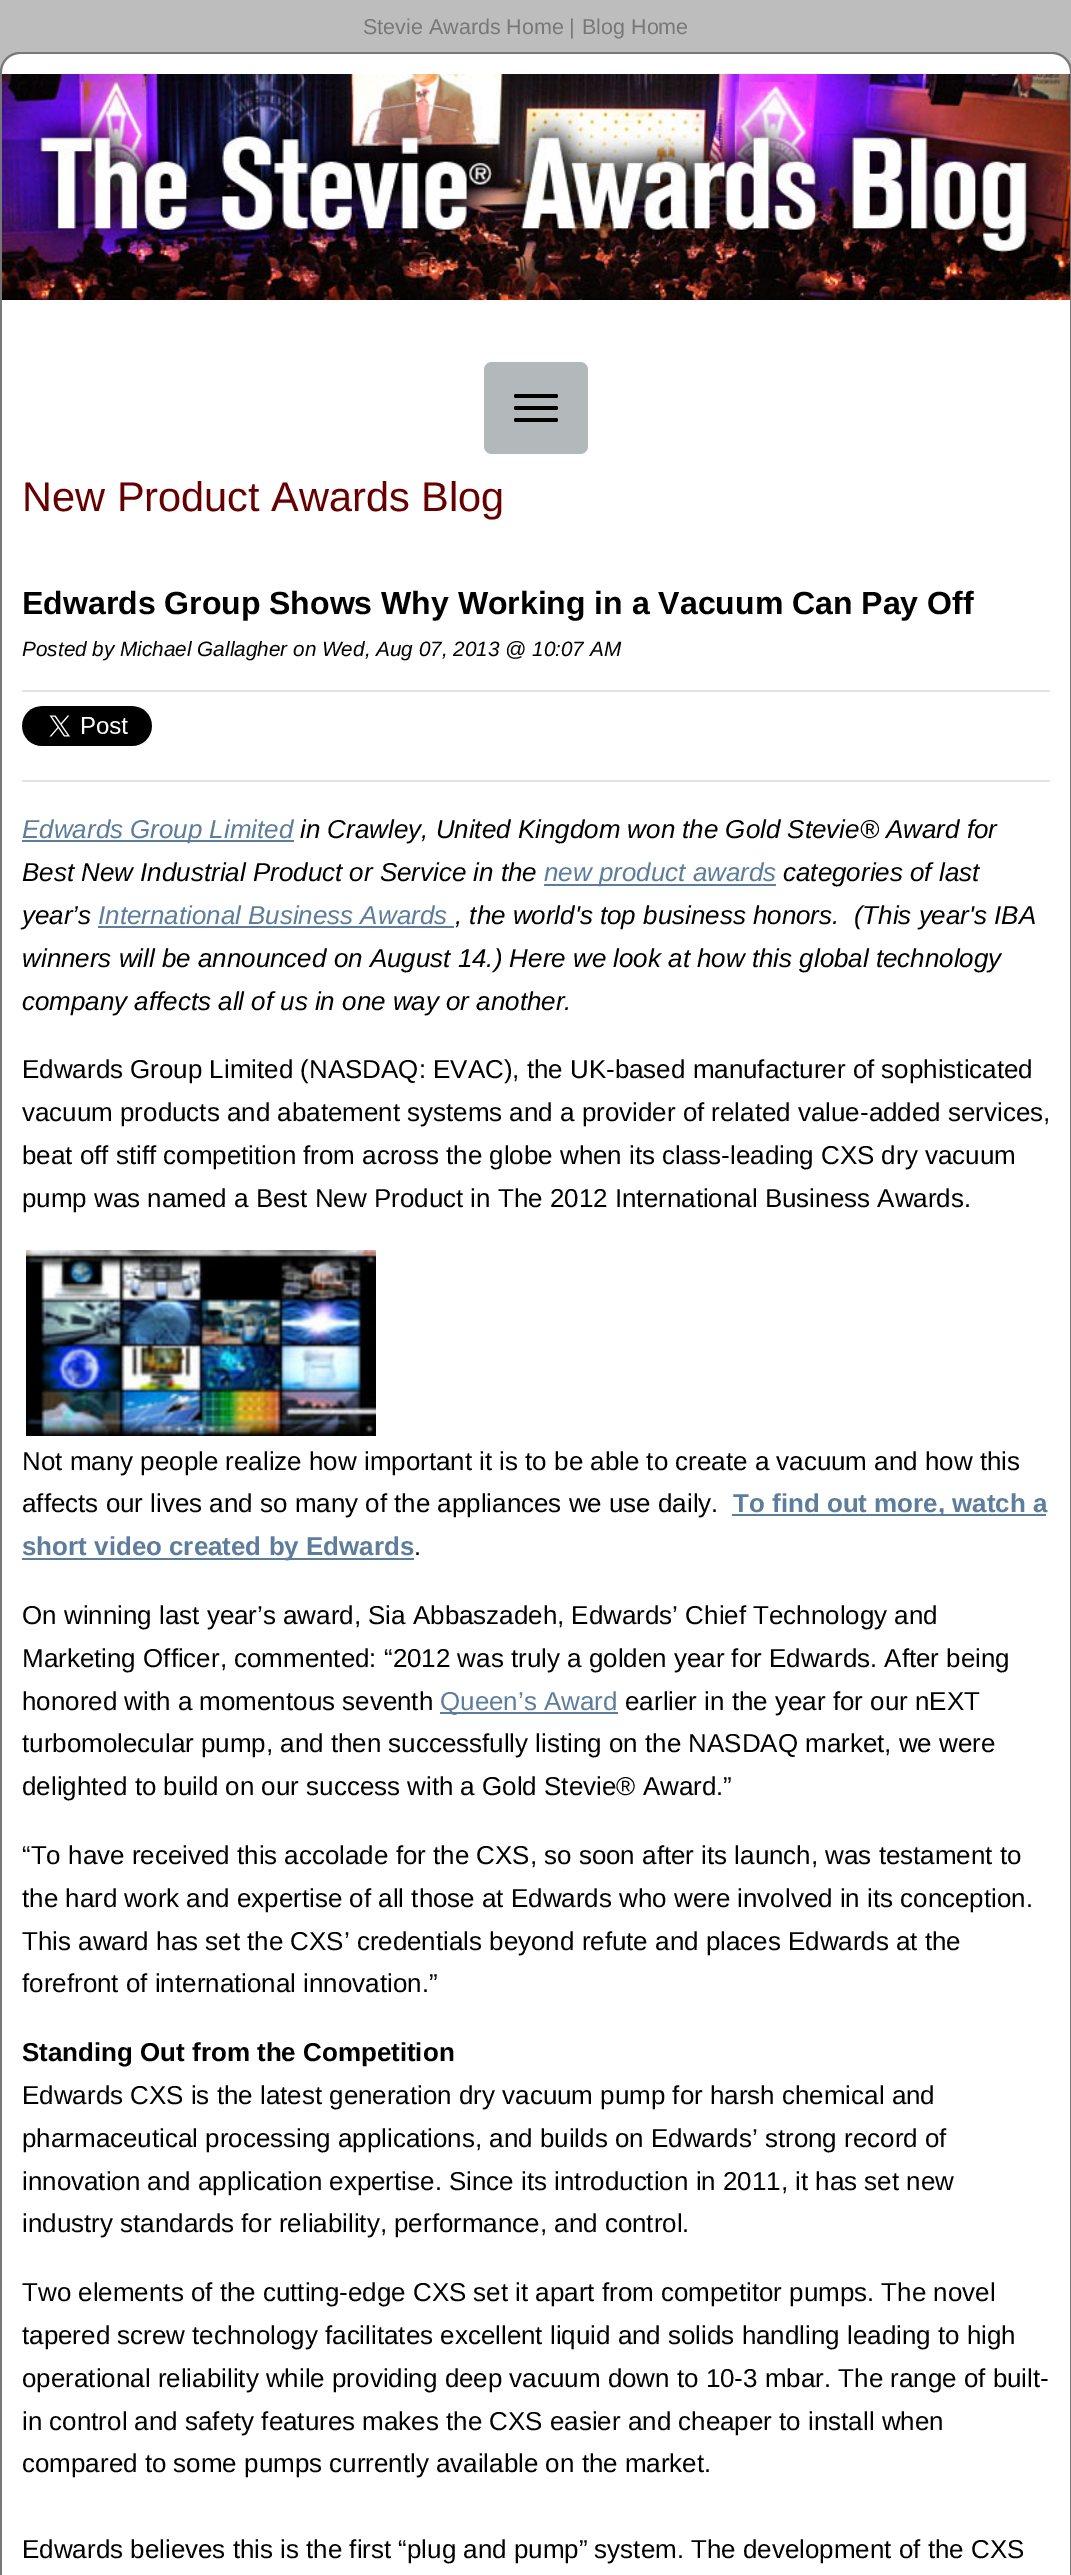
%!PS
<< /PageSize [1071 2575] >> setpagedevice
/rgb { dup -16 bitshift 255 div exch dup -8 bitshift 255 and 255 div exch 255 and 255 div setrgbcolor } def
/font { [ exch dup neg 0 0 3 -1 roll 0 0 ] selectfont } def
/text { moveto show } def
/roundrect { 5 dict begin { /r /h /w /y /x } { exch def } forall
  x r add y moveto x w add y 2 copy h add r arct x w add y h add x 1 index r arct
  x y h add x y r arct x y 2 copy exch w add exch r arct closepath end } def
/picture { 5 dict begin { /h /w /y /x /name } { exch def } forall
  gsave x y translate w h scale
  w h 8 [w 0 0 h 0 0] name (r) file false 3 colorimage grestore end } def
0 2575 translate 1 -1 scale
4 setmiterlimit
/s1 { /LiberationSans-Regular 21.5 font 16#787878 rgb } def
/s2 { /LiberationSans-Regular 41.5 font 16#660000 rgb } def
/s3 { /LiberationSans-Bold 32 font 16#000000 rgb } def
/s4 { /LiberationSans-Italic 20.75 font 16#000000 rgb } def
/s5 { /LiberationSans-Italic 25.95 font 16#5C7D9B rgb } def
/s6 { /LiberationSans-Italic 25.95 font 16#000000 rgb } def
/s7 { /LiberationSans-Regular 25.95 font 16#000000 rgb } def
/s8 { /LiberationSans-Bold 25.95 font 16#5C7D9B rgb } def
/s9 { /LiberationSans-Regular 25.95 font 16#5C7D9B rgb } def
/s10 { /LiberationSans-Bold 25.95 font 16#000000 rgb } def
16#BDBDBD rgb
0 0 1071 2575 rectfill
s1
(Stevie Awards Home) 363 34 text
(|) 569 34 text
(Blog Home) 582 34 text
16#FFFFFF rgb
20 54 moveto 1052 54 lineto 1062 54 1070 62 1070 72 curveto 1070 414 lineto 2 414 lineto 2 72 lineto 2 62 10 54 20 54 curveto closepath fill
16#787878 rgb
20 52 moveto 1052 52 lineto 1063 52 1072 61 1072 72 curveto 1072 414 lineto 0 414 lineto 0 72 lineto 0 61 9 52 20 52 curveto closepath 20 54 moveto 1052 54 lineto 1062 54 1070 62 1070 72 curveto 1070 414 lineto 2 414 lineto 2 72 lineto 2 62 10 54 20 54 curveto closepath eofill
(pic1.raw) 2 74 1068 226 picture
16#FFFFFF rgb
2 414 1068 2161 rectfill
16#787878 rgb
0 414 moveto 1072 414 lineto 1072 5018 lineto 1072 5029 1063 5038 1052 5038 curveto 20 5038 lineto 9 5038 0 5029 0 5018 curveto closepath 2 414 moveto 1070 414 lineto 1070 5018 lineto 1070 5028 1062 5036 1052 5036 curveto 20 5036 lineto 10 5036 2 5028 2 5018 curveto closepath eofill
16#B3B8BB rgb
484 362 104 92 8 roundrect fill
16#000000 rgb
514 406 44 4 2 roundrect fill
514 394 44 4 2 roundrect fill
514 418 44 4 2 roundrect fill
s2
(New Product Awards Blog) 22 511 text
s3
(Edwards Group Shows Why Working in a Vacuum Can Pay Off) 22 614 text
s4
(Posted by Michael Gallagher on Wed, Aug 07, 2013 @ 10:07 AM) 22 656 text
16#E2E2E2 rgb
22 690 1028 2 rectfill
22 780 1028 2 rectfill
(pic2.raw) 22 706 130 40 picture
16#5C7D9B rgb
22 840 272 2 rectfill
s5
(Edwards Group Limited) 22 838 text
s6
(in Crawley, United Kingdom won the Gold Stevie® Award for) 300 838 text
(Best New Industrial Product or Service in the) 22 881 text
16#5C7D9B rgb
544 884 232 2 rectfill
(new product awards) 544 881 text
s6
(categories of last) 783 881 text
(year’s) 22 924 text
s5
(International Business Awards) 98 924 text
s6
(, the world's top business honors.  \(This year's IBA) 455 924 text
16#5C7D9B rgb
98 926 356 2 rectfill
s6
(winners will be announced on August 14.\) Here we look at how this global technology) 22 967 text
(company affects all of us in one way or another.) 22 1010 text
s7
(Edwards Group Limited \(NASDAQ: EVAC\), the UK-based manufacturer of sophisticated) 22 1078 text
(vacuum products and abatement systems and a provider of related value-added services,) 22 1121 text
(beat off stiff competition from across the globe when its class-leading CXS dry vacuum) 22 1164 text
(pump was named a Best New Product in The 2012 International Business Awards.) 22 1207 text
(pic3.raw) 26 1250 350 186 picture
(Not many people realize how important it is to be able to create a vacuum and how this) 22 1470 text
(affects our lives and so many of the appliances we use daily.) 22 1512 text
16#5C7D9B rgb
732 1514 314 2 rectfill
s8
(To find out more, watch a) 733 1512 text
22 1558 392 2 rectfill
(short video created by Edwards) 22 1555 text
s7
(.) 414 1555 text
(On winning last year’s award, Sia Abbaszadeh, Edwards’ Chief Technology and) 22 1624 text
(Marketing Officer, commented: “2012 was truly a golden year for Edwards. After being) 22 1667 text
(honored with a momentous seventh) 22 1710 text
16#5C7D9B rgb
440 1712 178 2 rectfill
(Queen’s Award) 440 1710 text
s7
(earlier in the year for our nEXT) 625 1710 text
(turbomolecular pump, and then successfully listing on the NASDAQ market, we were) 22 1752 text
(delighted to build on our success with a Gold Stevie® Award.”) 22 1795 text
(“To have received this accolade for the CXS, so soon after its launch, was testament to) 22 1864 text
(the hard work and expertise of all those at Edwards who were involved in its conception.) 22 1907 text
(This award has set the CXS’ credentials beyond refute and places Edwards at the) 22 1950 text
(forefront of international innovation.”) 22 1992 text
s10
(Standing Out from the Competition) 22 2061 text
s7
(Edwards CXS is the latest generation dry vacuum pump for harsh chemical and) 22 2104 text
(pharmaceutical processing applications, and builds on Edwards’ strong record of) 22 2147 text
(innovation and application expertise. Since its introduction in 2011, it has set new) 22 2190 text
(industry standards for reliability, performance, and control.) 22 2232 text
(Two elements of the cutting-edge CXS set it apart from competitor pumps. The novel) 22 2301 text
(tapered screw technology facilitates excellent liquid and solids handling leading to high) 22 2344 text
(operational reliability while providing deep vacuum down to 10-3 mbar. The range of built-) 22 2387 text
(in control and safety features makes the CXS easier and cheaper to install when) 22 2430 text
(compared to some pumps currently available on the market.) 22 2472 text
(Edwards believes this is the first “plug and pump” system. The development of the CXS) 22 2558 text
showpage
